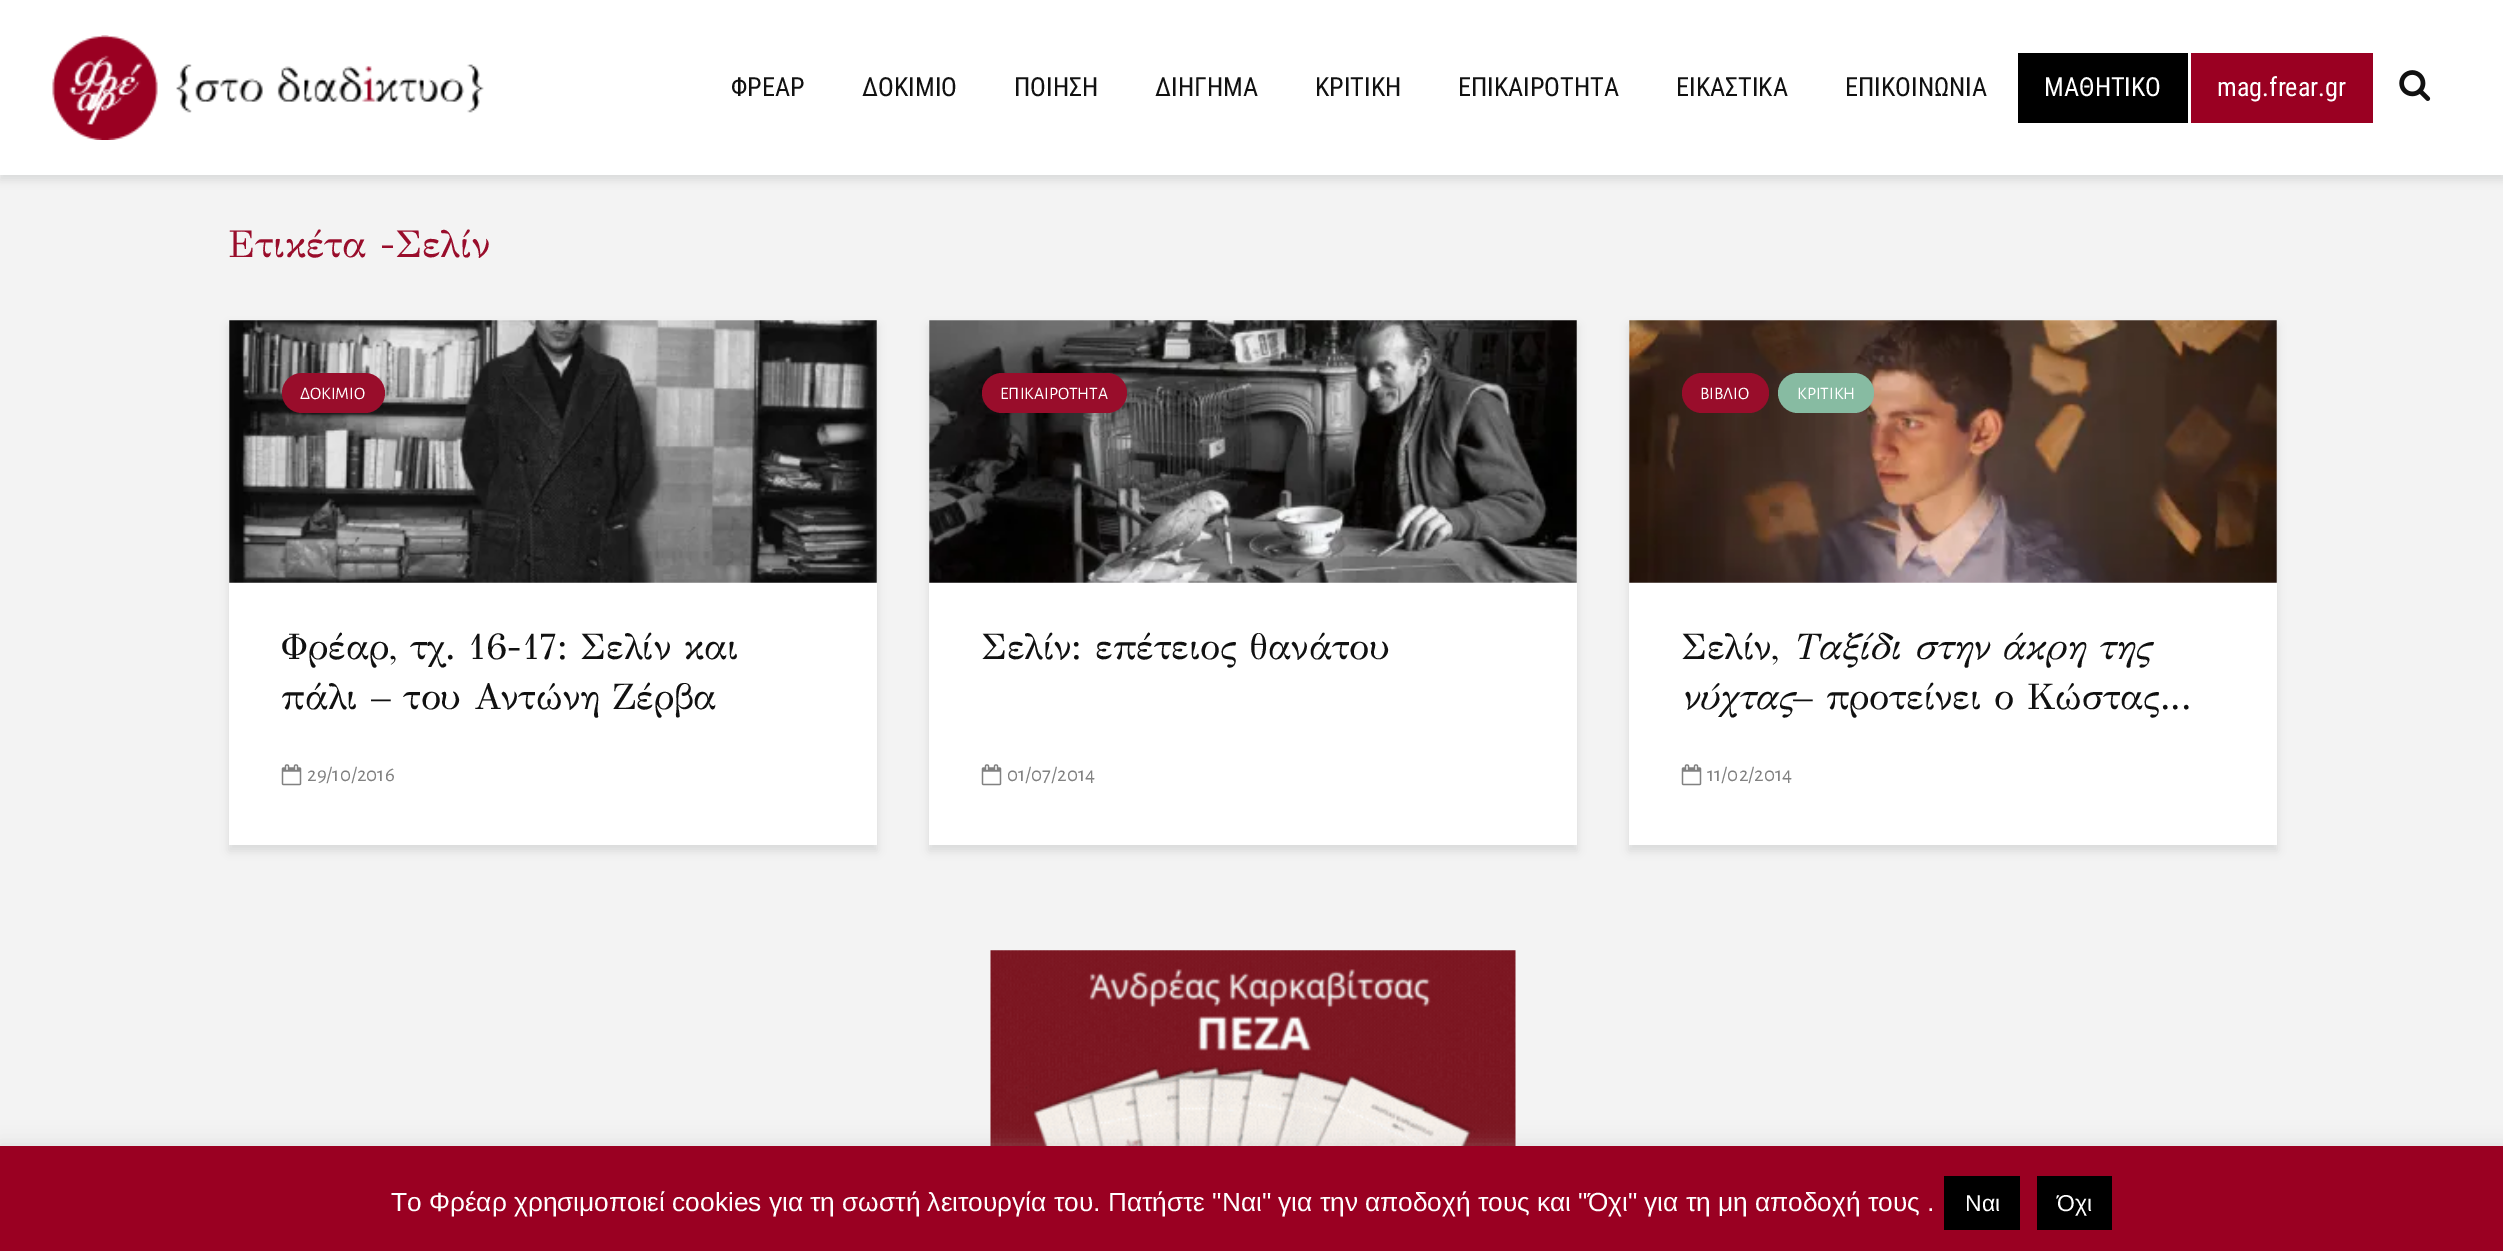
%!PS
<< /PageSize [2503 1251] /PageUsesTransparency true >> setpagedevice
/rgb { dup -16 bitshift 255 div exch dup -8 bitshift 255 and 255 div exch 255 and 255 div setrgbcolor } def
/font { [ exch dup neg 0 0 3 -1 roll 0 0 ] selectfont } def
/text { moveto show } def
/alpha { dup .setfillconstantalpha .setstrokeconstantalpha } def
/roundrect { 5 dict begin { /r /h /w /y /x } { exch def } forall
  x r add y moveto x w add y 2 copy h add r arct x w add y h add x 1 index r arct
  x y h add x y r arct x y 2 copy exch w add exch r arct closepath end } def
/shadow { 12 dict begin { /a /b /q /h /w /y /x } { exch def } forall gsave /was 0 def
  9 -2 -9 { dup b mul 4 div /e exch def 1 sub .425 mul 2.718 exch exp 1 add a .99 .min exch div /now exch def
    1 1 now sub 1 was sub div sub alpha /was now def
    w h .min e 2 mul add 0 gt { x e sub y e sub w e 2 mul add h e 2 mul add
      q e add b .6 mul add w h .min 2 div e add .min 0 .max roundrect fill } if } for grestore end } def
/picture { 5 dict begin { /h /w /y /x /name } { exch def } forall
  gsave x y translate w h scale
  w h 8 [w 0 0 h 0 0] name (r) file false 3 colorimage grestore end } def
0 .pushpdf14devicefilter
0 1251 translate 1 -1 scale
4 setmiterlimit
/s1 { /RobotoCondensed-Regular 26.25 font 16#111111 rgb } def
/s2 { /RobotoCondensed-Regular 26.25 font 16#FFFFFF rgb } def
/s3 { /GFSDidot-Regular 38.5 font 16#990D2B rgb } def
/s4 { /AlegreyaSans-Regular 17.5 font 16#FFFFFF rgb } def
/s5 { /GFSDidot-Regular 36.75 font 16#111111 rgb } def
/s6 { /AlegreyaSans-Regular 21 font 16#818181 rgb } def
/s7 { /GFSDidot-Italic 36.75 font 16#111111 rgb } def
/s8 { /LiberationSans-Regular 26.25 font 16#FFFFFF rgb } def
/s9 { /LiberationSans-Regular 23 font 16#FFFFFF rgb } def
16#F3F3F3 rgb
0 0 2503 1251 rectfill
16#000101 rgb
0 5 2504 175 0 4.5 0.1 shadow
16#FFFFFF rgb
0 0 2503 175 rectfill
(pic1.raw) 52 35 432 105 picture
s1
(ΦΡΕΑΡ) 731 96 text
(ΔΟΚΙΜΙΟ) 862 96 text
(ΠΟΙΗΣΗ) 1014 96 text
(ΔΙΗΓΗΜΑ) 1155 96 text
(ΚΡΙΤΙΚΗ) 1315 96 text
(ΕΠΙΚΑΙΡΟΤΗΤΑ) 1458 96 text
(ΕΙΚΑΣΤΙΚΑ) 1676 96 text
(ΕΠΙΚΟΙΝΩΝΙΑ) 1845 96 text
16#000000 rgb
2018 53 170 70 rectfill
s2
(ΜΑΘΗΤΙΚΟ) 2044 96 text
16#9A0022 rgb
2191 53 182 70 rectfill
s2
(mag.frear.gr) 2217 96 text
(pic2.raw) 2399 70 32 31 picture
s3
(Ετικέτα -Σελίν) 228 257 text
16#000101 rgb
229 326 648 525 0 4.5 0.1 shadow
16#FFFFFF rgb
229 320 648 525 rectfill
(pic3.raw) 229 320 648 263 picture
16#990D2B rgb
282 373 103 40 20 roundrect fill
s4
(ΔΟΚΙΜΙΟ) 300 399 text
s5
(Φρέαρ, τχ. 16-17: Σελίν και) 281 659 text
(πάλι – του Αντώνη Ζέρβα) 281 709 text
(pic4.raw) 281 764 21 22 picture
s6
(29/10/2016) 307 781 text
16#000101 rgb
929 326 648 525 0 4.5 0.1 shadow
16#FFFFFF rgb
929 320 648 525 rectfill
(pic5.raw) 929 320 648 263 picture
16#990D2B rgb
982 373 145 40 20 roundrect fill
s4
(ΕΠΙΚΑΙΡΟΤΗΤΑ) 1000 399 text
s5
(Σελίν: επέτειος θανάτου) 981 659 text
(pic4.raw) 981 764 21 22 picture
s6
(01/07/2014) 1007 781 text
16#000101 rgb
1629 326 648 525 0 4.5 0.1 shadow
16#FFFFFF rgb
1629 320 648 525 rectfill
(pic6.raw) 1629 320 648 263 picture
16#990D2B rgb
1682 373 87 40 20 roundrect fill
s4
(ΒΙΒΛΙΟ) 1700 399 text
16#87BBA2 rgb
1778 373 96 40 20 roundrect fill
s4
(ΚΡΙΤΙΚΗ) 1797 399 text
s5
(Σελίν,) 1681 659 text
s7
(Ταξίδι στην άκρη της) 1792 659 text
(νύχτας) 1681 709 text
s5
(– προτείνει ο Κώστας...) 1793 709 text
(pic4.raw) 1681 764 21 22 picture
s6
(11/02/2014) 1707 781 text
(pic7.raw) 990 950 526 196 picture
16#ACABAB rgb
0 1145 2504 105 0 9 0.3 shadow
16#9A0022 rgb
0 1146 2503 105 rectfill
s8
(Το Φρέαρ χρησιμοποιεί cookies για τη σωστή λειτουργία του. Πατήστε "Ναι" για την αποδοχή τους και "Όχι" για τη μη αποδοχή τους .) 391 1211 text
16#000000 rgb
1944 1176 76 54 rectfill
s9
(Ναι) 1965 1211 text
16#000000 rgb
2037 1176 75 54 rectfill
s9
(Όχι) 2057 1211 text
.poppdf14devicefilter showpage
